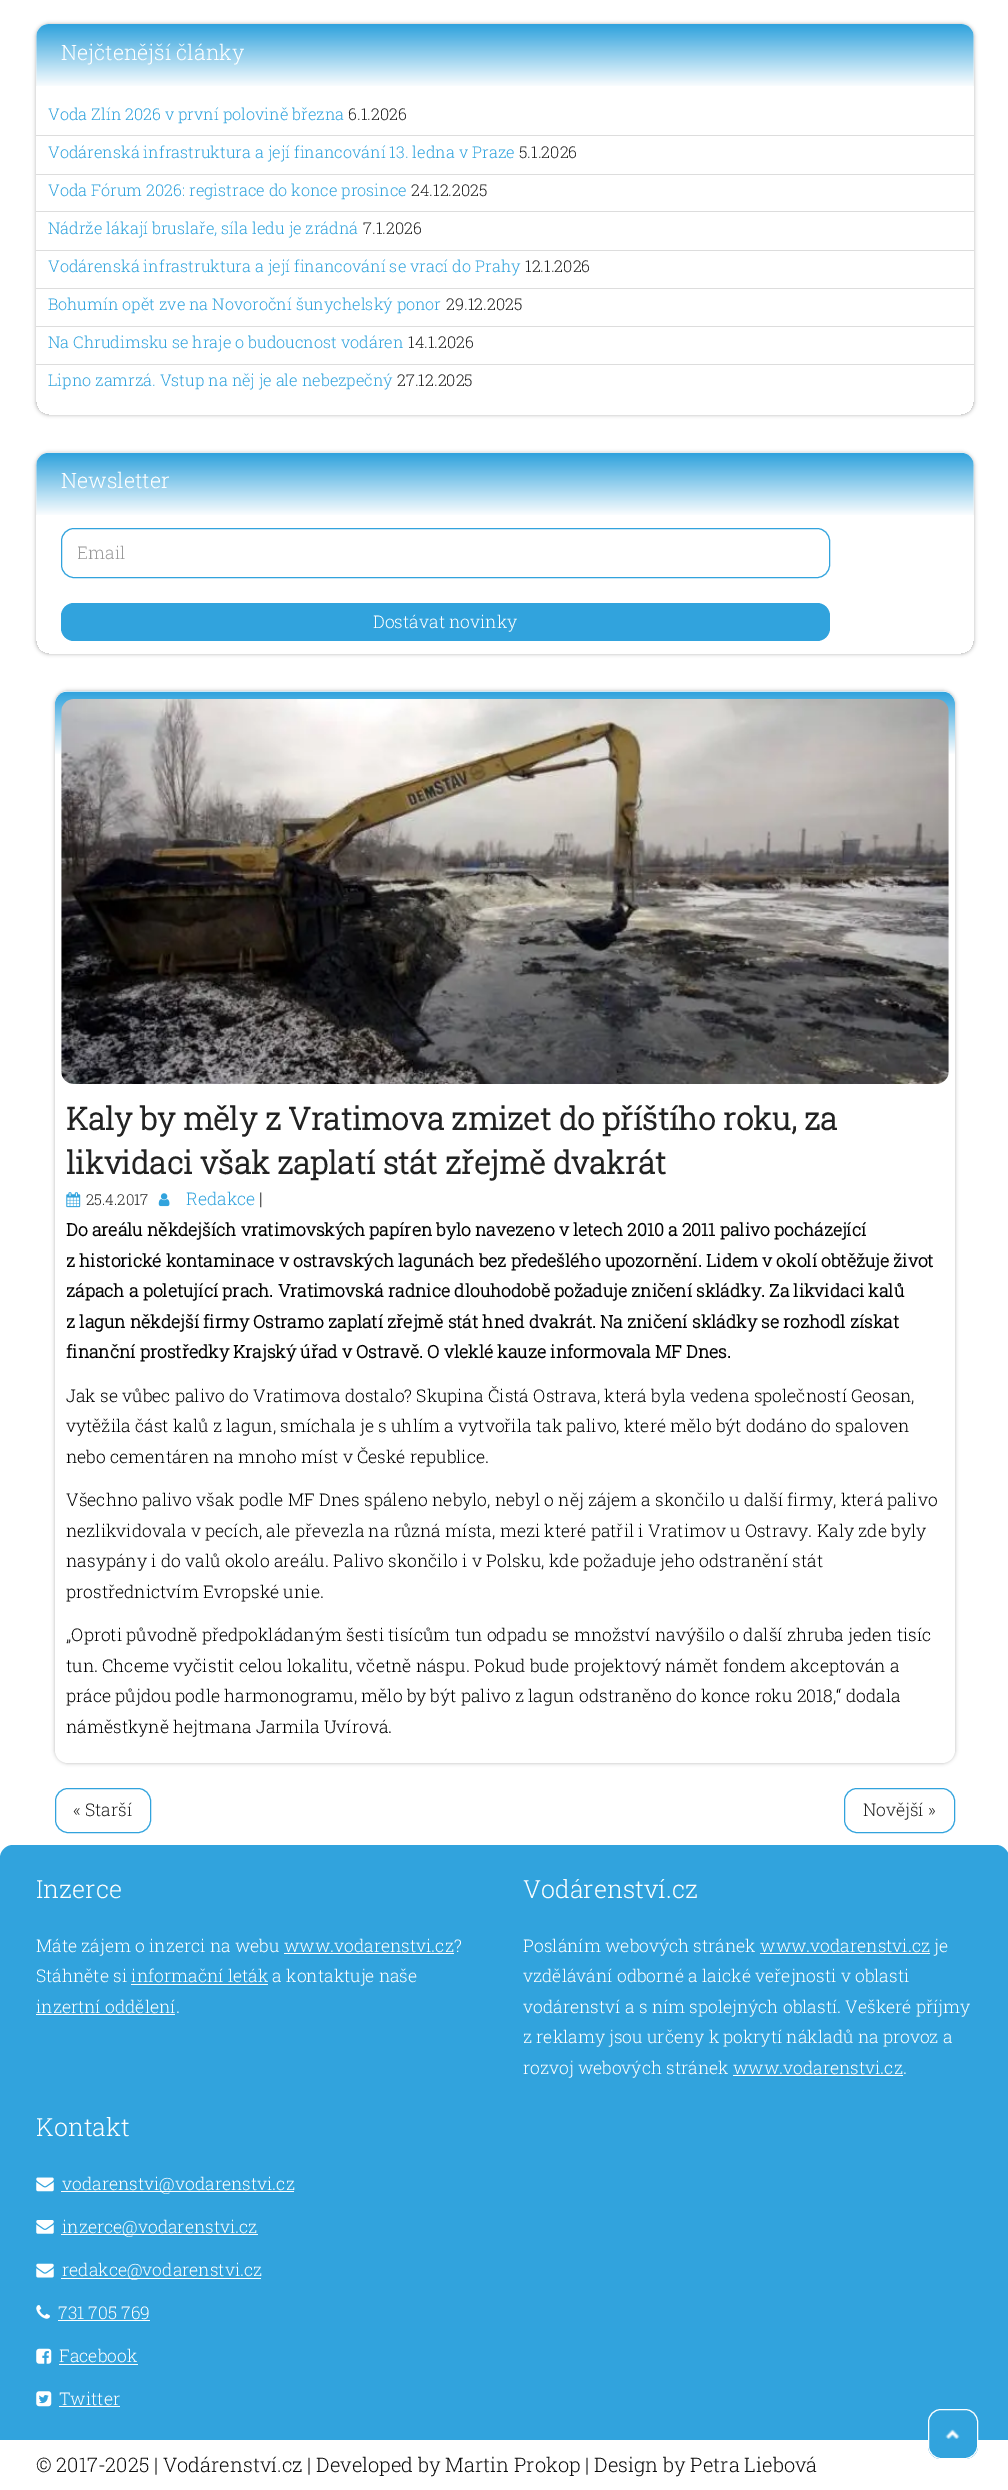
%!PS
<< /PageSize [1008 2490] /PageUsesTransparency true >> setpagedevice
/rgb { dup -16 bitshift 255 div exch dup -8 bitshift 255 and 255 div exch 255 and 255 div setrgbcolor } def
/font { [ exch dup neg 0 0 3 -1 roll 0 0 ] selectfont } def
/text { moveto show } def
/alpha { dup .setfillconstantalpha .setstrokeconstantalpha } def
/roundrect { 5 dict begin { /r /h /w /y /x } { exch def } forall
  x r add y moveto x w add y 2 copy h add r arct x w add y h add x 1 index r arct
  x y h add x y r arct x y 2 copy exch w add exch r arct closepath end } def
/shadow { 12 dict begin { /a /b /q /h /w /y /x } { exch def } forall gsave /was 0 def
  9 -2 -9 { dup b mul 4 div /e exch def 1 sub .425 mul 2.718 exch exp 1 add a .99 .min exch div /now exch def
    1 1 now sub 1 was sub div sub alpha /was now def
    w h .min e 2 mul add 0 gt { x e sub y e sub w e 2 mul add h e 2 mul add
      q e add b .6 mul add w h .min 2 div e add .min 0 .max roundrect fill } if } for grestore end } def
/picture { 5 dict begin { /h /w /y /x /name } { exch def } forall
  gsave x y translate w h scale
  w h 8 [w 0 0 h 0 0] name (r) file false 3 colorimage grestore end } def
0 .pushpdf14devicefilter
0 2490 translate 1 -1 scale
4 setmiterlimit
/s1 { /RobotoSlab-Light 21.25 font 16#FFFFFF rgb } def
/s2 { /RobotoSlab-Light 16.25 font 16#31A3DD rgb } def
/s3 { /RobotoSlab-Light 16.25 font 16#222222 rgb } def
/s4 { /RobotoSlab-Light 17.5 font 16#999999 rgb } def
/s5 { /RobotoSlab-Light 17.5 font 16#FFFFFF rgb } def
/s6 { /RobotoSlab-Bold 31.25 font 16#222222 rgb } def
/s7 { /RobotoSlab-Light 15 font 16#222222 rgb } def
/s8 { /RobotoSlab-Light 17.5 font 16#31A3DD rgb } def
/s9 { /RobotoSlab-Light 17.5 font 16#222222 rgb } def
/s10 { /RobotoSlab-Bold 17.5 font 16#000000 rgb } def
/s11 { /RobotoSlab-Light 17.5 font 16#000000 rgb } def
/s12 { /RobotoSlab-Light 25 font 16#FFFFFF rgb } def
/s13 { /RobotoSlab-Light 20 font 16#0C0C0C rgb } def
16#FFFFFF rgb
0 0 1008 2490 rectfill
gsave
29 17 moveto 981 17 lineto 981 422 lineto 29 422 lineto closepath 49 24 moveto 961 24 lineto 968 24 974 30 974 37 curveto 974 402 lineto 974 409 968 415 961 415 curveto 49 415 lineto 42 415 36 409 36 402 curveto 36 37 lineto 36 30 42 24 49 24 curveto closepath eoclip newpath
16#000000 rgb
36 24 938 391 13 2 0.3 shadow
grestore
(pic1.raw) 36 24 938 62 picture
s1
(Nejčtenější články) 61 60 text
16#DDDDDD rgb
36 135 938 1 rectfill
s2
(Voda Zlín 2026 v první polovině března) 48 120 text
s3
(6.1.2026) 348 120 text
16#DDDDDD rgb
36 174 938 1 rectfill
s2
(Vodárenská infrastruktura a její financování 13. ledna v Praze) 48 158 text
s3
(5.1.2026) 519 158 text
16#DDDDDD rgb
36 211 938 1 rectfill
s2
(Voda Fórum 2026: registrace do konce prosince) 48 196 text
s3
(24.12.2025) 411 196 text
16#DDDDDD rgb
36 250 938 1 rectfill
s2
(Nádrže lákají bruslaře, síla ledu je zrádná) 48 234 text
s3
(7.1.2026) 363 234 text
16#DDDDDD rgb
36 288 938 1 rectfill
s2
(Vodárenská infrastruktura a její financování se vrací do Prahy) 48 272 text
s3
(12.1.2026) 525 272 text
16#DDDDDD rgb
36 326 938 1 rectfill
s2
(Bohumín opět zve na Novoroční šunychelský ponor) 48 310 text
s3
(29.12.2025) 446 310 text
16#DDDDDD rgb
36 364 938 1 rectfill
s2
(Na Chrudimsku se hraje o budoucnost vodáren) 48 348 text
s3
(14.1.2026) 408 348 text
s2
(Lipno zamrzá. Vstup na něj je ale nebezpečný) 48 386 text
s3
(27.12.2025) 397 386 text
gsave
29 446 moveto 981 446 lineto 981 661 lineto 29 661 lineto closepath 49 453 moveto 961 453 lineto 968 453 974 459 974 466 curveto 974 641 lineto 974 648 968 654 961 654 curveto 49 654 lineto 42 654 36 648 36 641 curveto 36 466 lineto 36 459 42 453 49 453 curveto closepath eoclip newpath
16#000000 rgb
36 453 938 201 13 2 0.3 shadow
grestore
(pic2.raw) 36 452 938 63 picture
s1
(Newsletter) 61 488 text
16#31A3DD rgb
61.5 528.5 768 49 12.5 roundrect stroke
gsave
78 540 736 24 rectclip
s4
(Email) 77 559 text
grestore
61 603 769 38 13 roundrect fill
s5
(Dostávat novinky) 373 628 text
16#000000 rgb
55 691 900 1072 13 2 0.3 shadow
16#FFFFFF rgb
55 691 900 1072 13 roundrect fill
(pic3.raw) 55 691 900 63 picture
(pic4.raw) 61 699 888 385 picture
s6
(Kaly by měly z Vratimova zmizet do příštího roku, za) 66 1130 text
(likvidaci však zaplatí stát zřejmě dvakrát) 66 1174 text
(pic5.raw) 66 1192 15 16 picture
s7
(25.4.2017) 86 1205 text
(pic6.raw) 158 1193 12 14 picture
s8
(Redakce) 186 1205 text
s9
(|) 259 1205 text
s10
(Do areálu někdejších vratimovských papíren bylo navezeno v letech 2010 a 2011 palivo pocházející) 66 1236 text
(z historické kontaminace v ostravských lagunách bez předešlého upozornění. Lidem v okolí obtěžuje život) 66 1267 text
(zápach a poletující prach. Vratimovská radnice dlouhodobě požaduje zničení skládky. Za likvidaci kalů) 66 1297 text
(z lagun někdejší firmy Ostramo zaplatí zřejmě stát hned dvakrát. Na zničení skládky se rozhodl získat) 66 1328 text
(finanční prostředky Krajský úřad v Ostravě. O vleklé kauze informovala MF Dnes.) 66 1358 text
s11
(Jak se vůbec palivo do Vratimova dostalo? Skupina Čistá Ostrava, která byla vedena společností Geosan,) 66 1402 text
(vytěžila část kalů z lagun, smíchala je s uhlím a vytvořila tak palivo, které mělo být dodáno do spaloven) 66 1432 text
(nebo cementáren na mnoho míst v České republice.) 66 1463 text
(Všechno palivo však podle MF Dnes spáleno nebylo, nebyl o něj zájem a skončilo u další firmy, která palivo) 66 1506 text
(nezlikvidovala v pecích, ale převezla na různá místa, mezi které patřil i Vratimov u Ostravy. Kaly zde byly) 66 1537 text
(nasypány i do valů okolo areálu. Palivo skončilo i v Polsku, kde požaduje jeho odstranění stát) 66 1567 text
(prostřednictvím Evropské unie.) 66 1598 text
(„Oproti původně předpokládaným šesti tisícům tun odpadu se množství navýšilo o další zhruba jeden tisíc) 66 1641 text
(tun. Chceme vyčistit celou lokalitu, včetně náspu. Pokud bude projektový námět fondem akceptován a) 66 1672 text
(práce půjdou podle harmonogramu, mělo by být palivo z lagun odstraněno do konce roku 2018,“ dodala) 66 1702 text
(náměstkyně hejtmana Jarmila Uvírová.) 66 1733 text
16#31A3DD rgb
55.5 1788.5 95 44 12.5 roundrect stroke
s9
(« Starší) 73 1816 text
16#31A3DD rgb
844.5 1788.5 110 44 12.5 roundrect stroke
s9
(Novější ») 863 1816 text
16#31A3DD rgb
13 1845 moveto 996 1845 lineto 1003 1845 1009 1851 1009 1858 curveto 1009 2440 lineto 0 2440 lineto 0 1858 lineto 0 1851 6 1845 13 1845 curveto closepath fill
s12
(Inzerce) 36 1898 text
s5
(Máte zájem o inzerci na webu www.vodarenstvi.cz?) 36 1952 text
284 1953 170 1 rectfill
(Stáhněte si informační leták a kontaktuje naše) 36 1982 text
131 1984 137 1 rectfill
(inzertní oddělení.) 36 2013 text
36 2014 139 1 rectfill
s12
(Vodárenství.cz) 523 1898 text
s5
(Posláním webových stránek www.vodarenstvi.cz je) 523 1952 text
760 1953 170 1 rectfill
(vzdělávání odborné a laické veřejnosti v oblasti) 523 1982 text
(vodárenství a s ním spolejných oblastí. Veškeré příjmy) 523 2013 text
(z reklamy jsou určeny k pokrytí nákladů na provoz a) 523 2043 text
(rozvoj webových stránek www.vodarenstvi.cz.) 523 2074 text
733 2075 170 1 rectfill
s12
(Kontakt) 36 2136 text
(pic7.raw) 36 2177 18 15 picture
61 2191 233 1 rectfill
s5
(vodarenstvi@vodarenstvi.cz) 62 2190 text
(pic8.raw) 36 2220 18 14 picture
61 2234 197 1 rectfill
(inzerce@vodarenstvi.cz) 62 2233 text
(pic9.raw) 36 2263 18 15 picture
61 2278 200 1 rectfill
(redakce@vodarenstvi.cz) 62 2276 text
(pic10.raw) 36 2305 14 14 picture
(731 705 769) 58 2319 text
58 2320 92 1 rectfill
(pic11.raw) 36 2348 16 16 picture
(Facebook) 59 2362 text
59 2364 79 1 rectfill
(pic12.raw) 36 2391 16 16 picture
(Twitter) 59 2405 text
59 2406 61 1 rectfill
16#31A3DD rgb
928 2409 50 50 13 roundrect fill
(pic13.raw) 945 2429 15 10 picture
16#FFFFFF rgb
928.5 2409.5 49 49 12.5 roundrect stroke
s13
(© 2017-2025 | Vodárenství.cz | Developed by Martin Prokop | Design by Petra Liebová) 36 2472 text
.poppdf14devicefilter showpage
